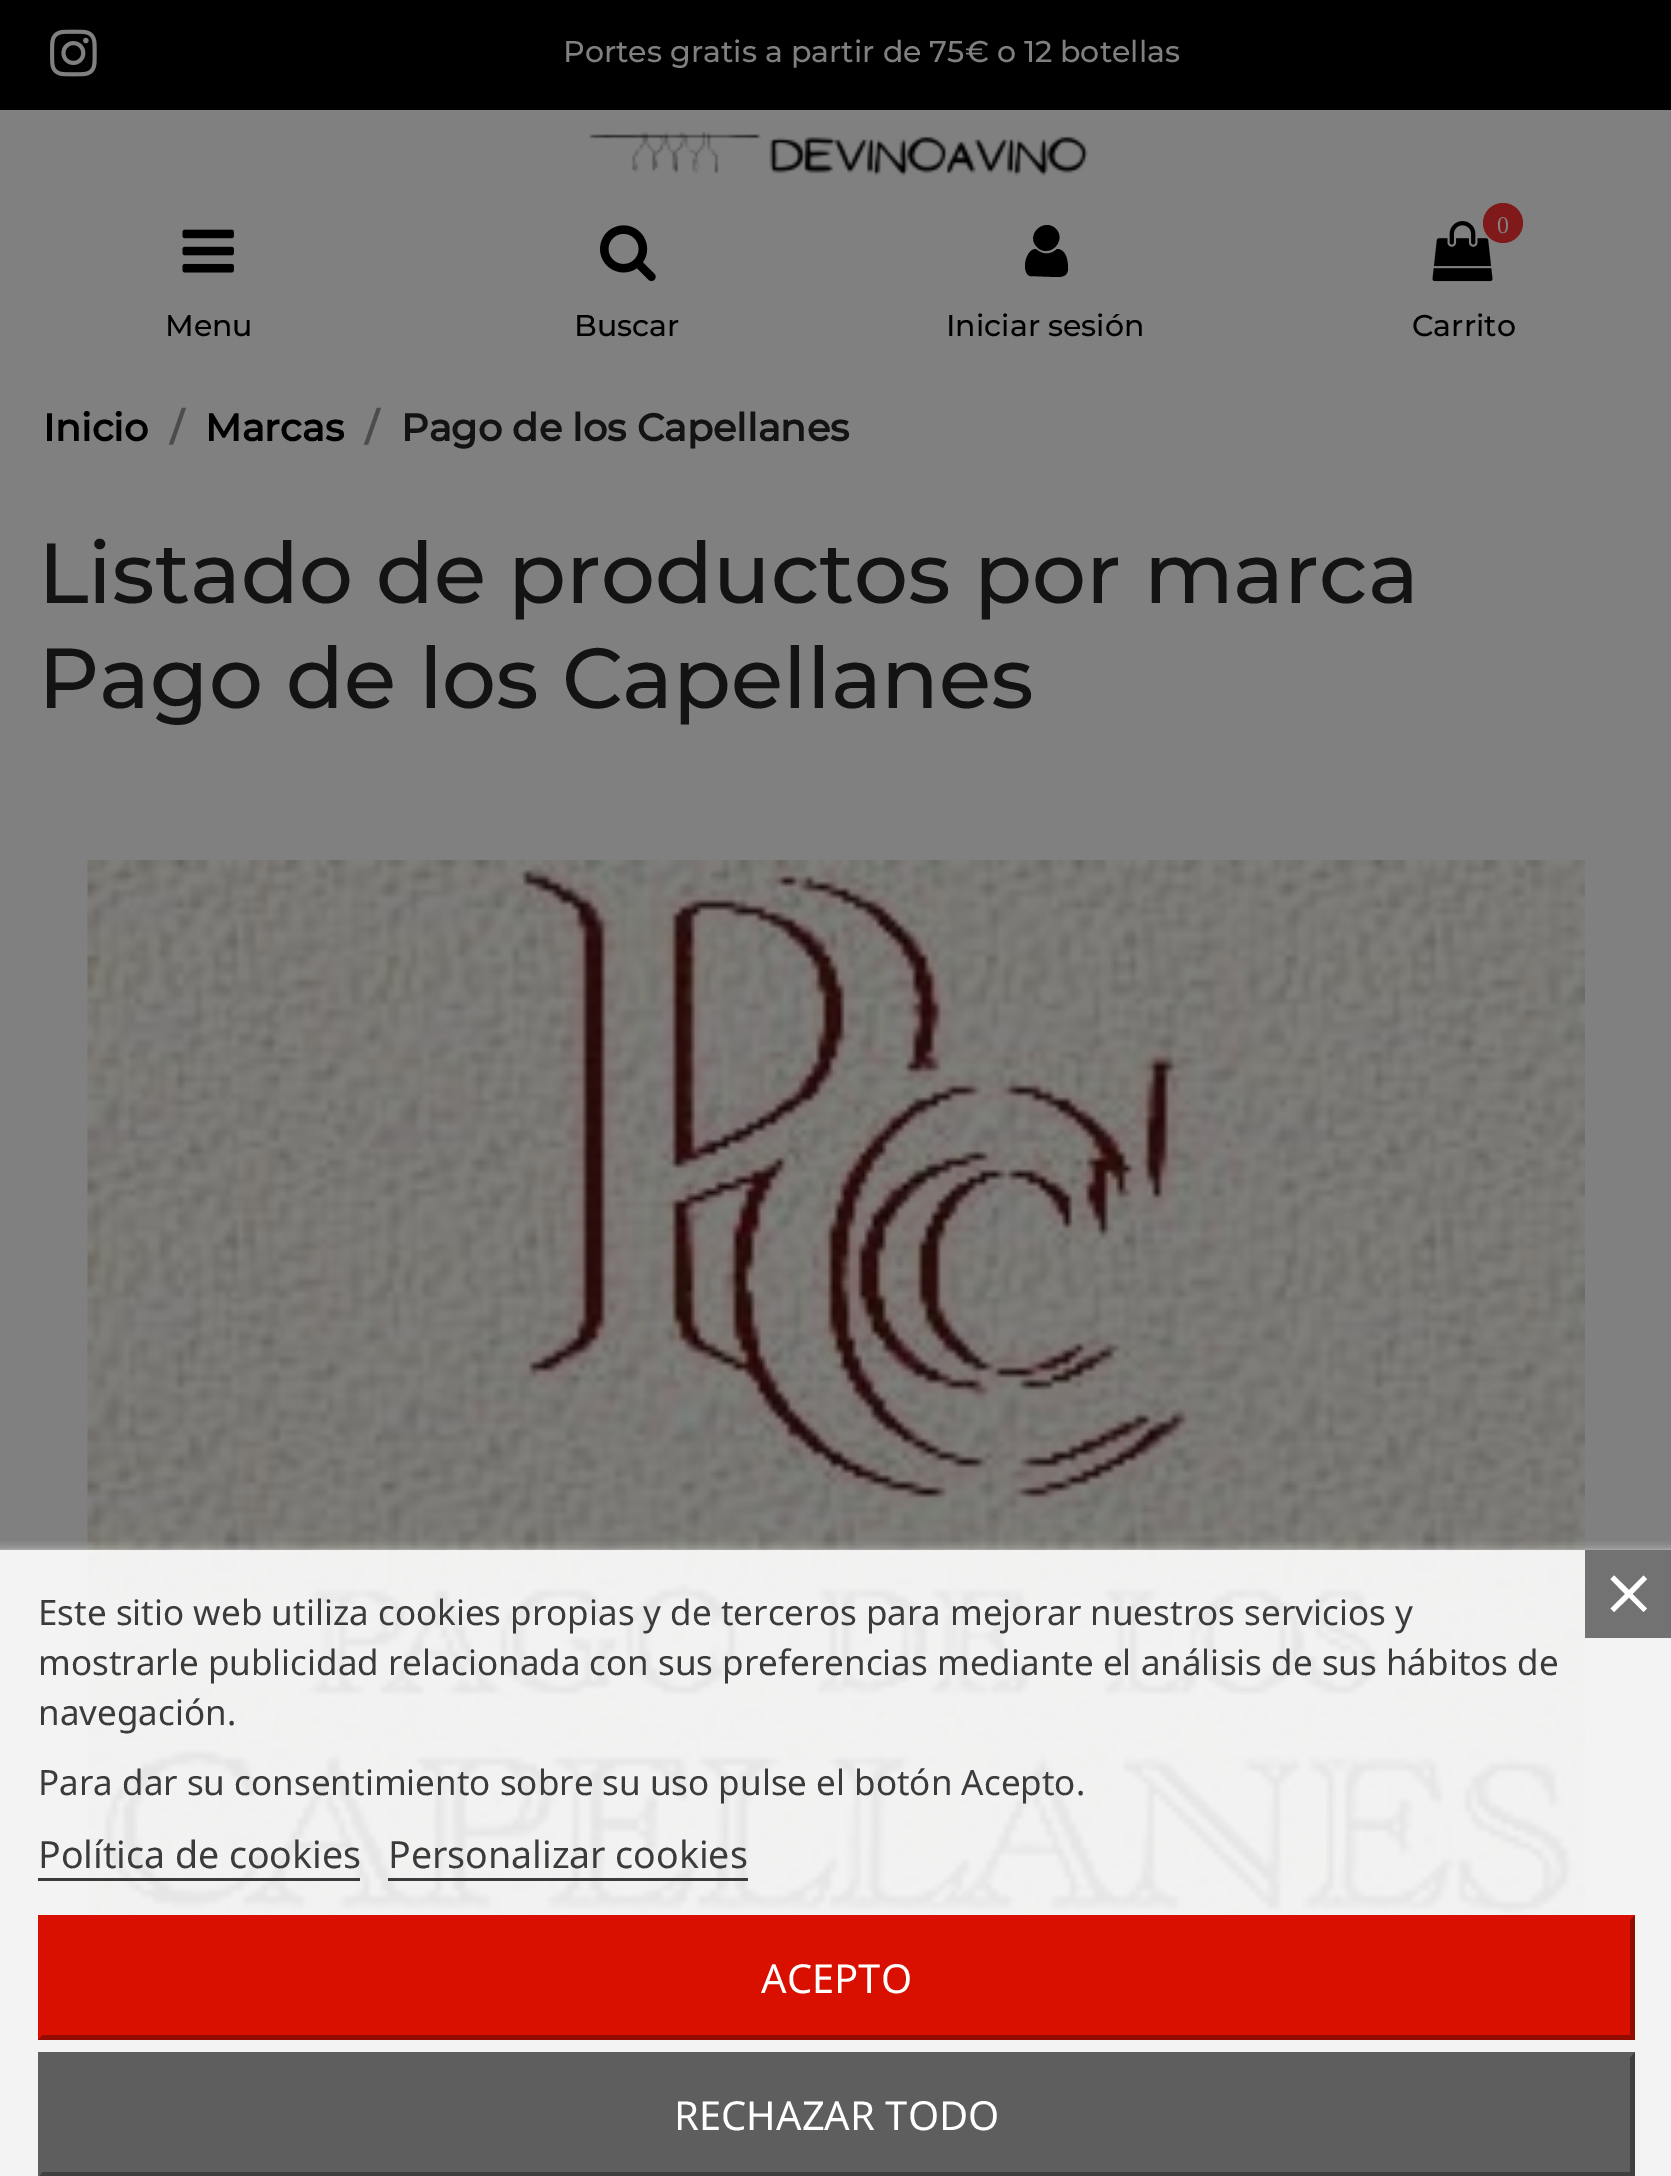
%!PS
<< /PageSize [1671 2176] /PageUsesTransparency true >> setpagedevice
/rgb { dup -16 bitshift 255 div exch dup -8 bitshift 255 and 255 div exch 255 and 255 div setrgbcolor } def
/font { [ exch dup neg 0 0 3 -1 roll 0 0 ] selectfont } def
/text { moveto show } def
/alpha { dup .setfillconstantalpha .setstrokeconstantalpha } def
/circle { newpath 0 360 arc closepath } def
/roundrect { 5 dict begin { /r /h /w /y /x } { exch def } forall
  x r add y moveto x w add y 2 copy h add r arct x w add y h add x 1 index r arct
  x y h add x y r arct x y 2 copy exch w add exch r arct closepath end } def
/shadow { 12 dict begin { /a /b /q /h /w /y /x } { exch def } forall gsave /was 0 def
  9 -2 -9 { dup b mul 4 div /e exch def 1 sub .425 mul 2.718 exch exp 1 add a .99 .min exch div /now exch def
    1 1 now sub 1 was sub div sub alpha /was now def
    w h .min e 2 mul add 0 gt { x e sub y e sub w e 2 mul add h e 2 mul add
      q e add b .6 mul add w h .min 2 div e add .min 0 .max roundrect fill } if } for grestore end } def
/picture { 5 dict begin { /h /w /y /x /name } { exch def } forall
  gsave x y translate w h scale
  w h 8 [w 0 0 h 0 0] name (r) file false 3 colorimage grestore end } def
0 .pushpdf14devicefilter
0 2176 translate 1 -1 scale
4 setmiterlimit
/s1 { /Montserrat-Thin 30 font 16#808080 rgb } def
/s2 { /Montserrat-Thin 30 font 16#000000 rgb } def
/s3 { /LiberationSerif-Regular 24 font 16#808080 rgb } def
/s4 { /Montserrat-Bold 38.25 font 16#000000 rgb } def
/s5 { /Montserrat-Bold 38.25 font 16#4C4C4C rgb } def
/s6 { /Montserrat-Bold 38.25 font 16#131313 rgb } def
/s7 { /Montserrat-Thin 85 font 16#131313 rgb } def
/s8 { /NotoSans-Regular 35 font 16#3B3B3B rgb } def
/s9 { /NotoSans-Regular 37.5 font 16#3B3B3B rgb } def
/s10 { /NotoSans-Regular 40 font 16#FFFFFF rgb } def
16#808080 rgb
0 0 1671 2176 rectfill
16#000000 rgb
0 0 1671 110 rectfill
(pic1.raw) 50 29 47 48 picture
s1
(Portes gratis a partir de 75€ o 12 botellas) 563 62 text
(pic2.raw) 589 131 499 45 picture
(pic3.raw) 182 229 52 44 picture
s2
(Menu) 165 336 text
(pic4.raw) 600 225 56 57 picture
(Buscar) 574 336 text
1068 268 moveto 1068 276 1063 277 1056 277 curveto 1030 276 lineto 1021 273 1025 249 1036 249 curveto 1042 255 1051 255 1057 249 curveto 1066 249 1068 261 1068 268 curveto closepath 1056 229 moveto 1067 241 1049 259 1037 247 curveto 1025 235 1044 217 1056 229 curveto closepath fill
(Iniciar sesión) 946 336 text
(pic5.raw) 1432 221 61 61 picture
16#801919 rgb
1503 223 20 circle fill
s3
(0) 1497 233 text
s2
(Carrito) 1412 336 text
s4
(Inicio) 43 441 text
s5
(/) 170 441 text
s4
(Marcas) 205 441 text
s5
(/) 365 441 text
s6
(Pago de los Capellanes) 401 441 text
s7
(Listado de productos por marca) 38 603 text
(Pago de los Capellanes) 38 708 text
(pic6.raw) 87 860 1498 1055 picture
gsave
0 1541 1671 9 rectclip
16#FFFFFF rgb
0 1553 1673 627 0 6 1 shadow
grestore
0.9 alpha
16#FFFFFF rgb
0 1550 1671 626 rectfill
1 alpha
s8
(Este sitio web utiliza cookies propias y de terceros para mejorar nuestros servicios y) 38 1625 text
(mostrarle publicidad relacionada con sus preferencias mediante el análisis de sus hábitos de) 38 1675 text
(navegación.) 38 1725 text
(Para dar su consentimiento sobre su uso pulse el botón Acepto.) 38 1795 text
s9
(Política de cookies) 38 1868 text
38 1878 322 3 rectfill
(Personalizar cookies) 388 1868 text
388 1878 360 3 rectfill
16#D91000 rgb
38 1915 1597 125 rectfill
16#910B00 rgb
1635 1915 moveto 1635 2040 lineto 1630 2035 lineto 1630 1920 lineto closepath fill
1635 2040 moveto 38 2040 lineto 42 2035 lineto 1630 2035 lineto closepath fill
16#D91000 rgb
38 2040 moveto 38 1915 lineto 42 1920 lineto 42 2035 lineto closepath fill
s10
(ACEPTO) 761 1993 text
16#5E5E5E rgb
38 2053 1597 123 rectfill
38 2052 moveto 1635 2052 lineto 1630 2058 lineto 42 2058 lineto closepath fill
16#3F3F3F rgb
1635 2052 moveto 1635 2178 lineto 1630 2172 lineto 1630 2058 lineto closepath fill
1635 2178 moveto 38 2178 lineto 42 2172 lineto 1630 2172 lineto closepath fill
16#5E5E5E rgb
38 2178 moveto 38 2052 lineto 42 2058 lineto 42 2172 lineto closepath fill
s10
(RECHAZAR TODO) 674 2130 text
16#727272 rgb
1585 1550 86 88 rectfill
16#FFFFFF rgb
1647 1579 moveto 1643.5 1575.5 lineto 1629 1590 lineto 1614 1575.5 lineto 1610.5 1579 lineto 1625 1594 lineto 1610.5 1608.5 lineto 1614 1612 lineto 1629 1597.5 lineto 1643.5 1612 lineto 1647 1608.5 lineto 1632.5 1594 lineto closepath fill
.poppdf14devicefilter showpage
